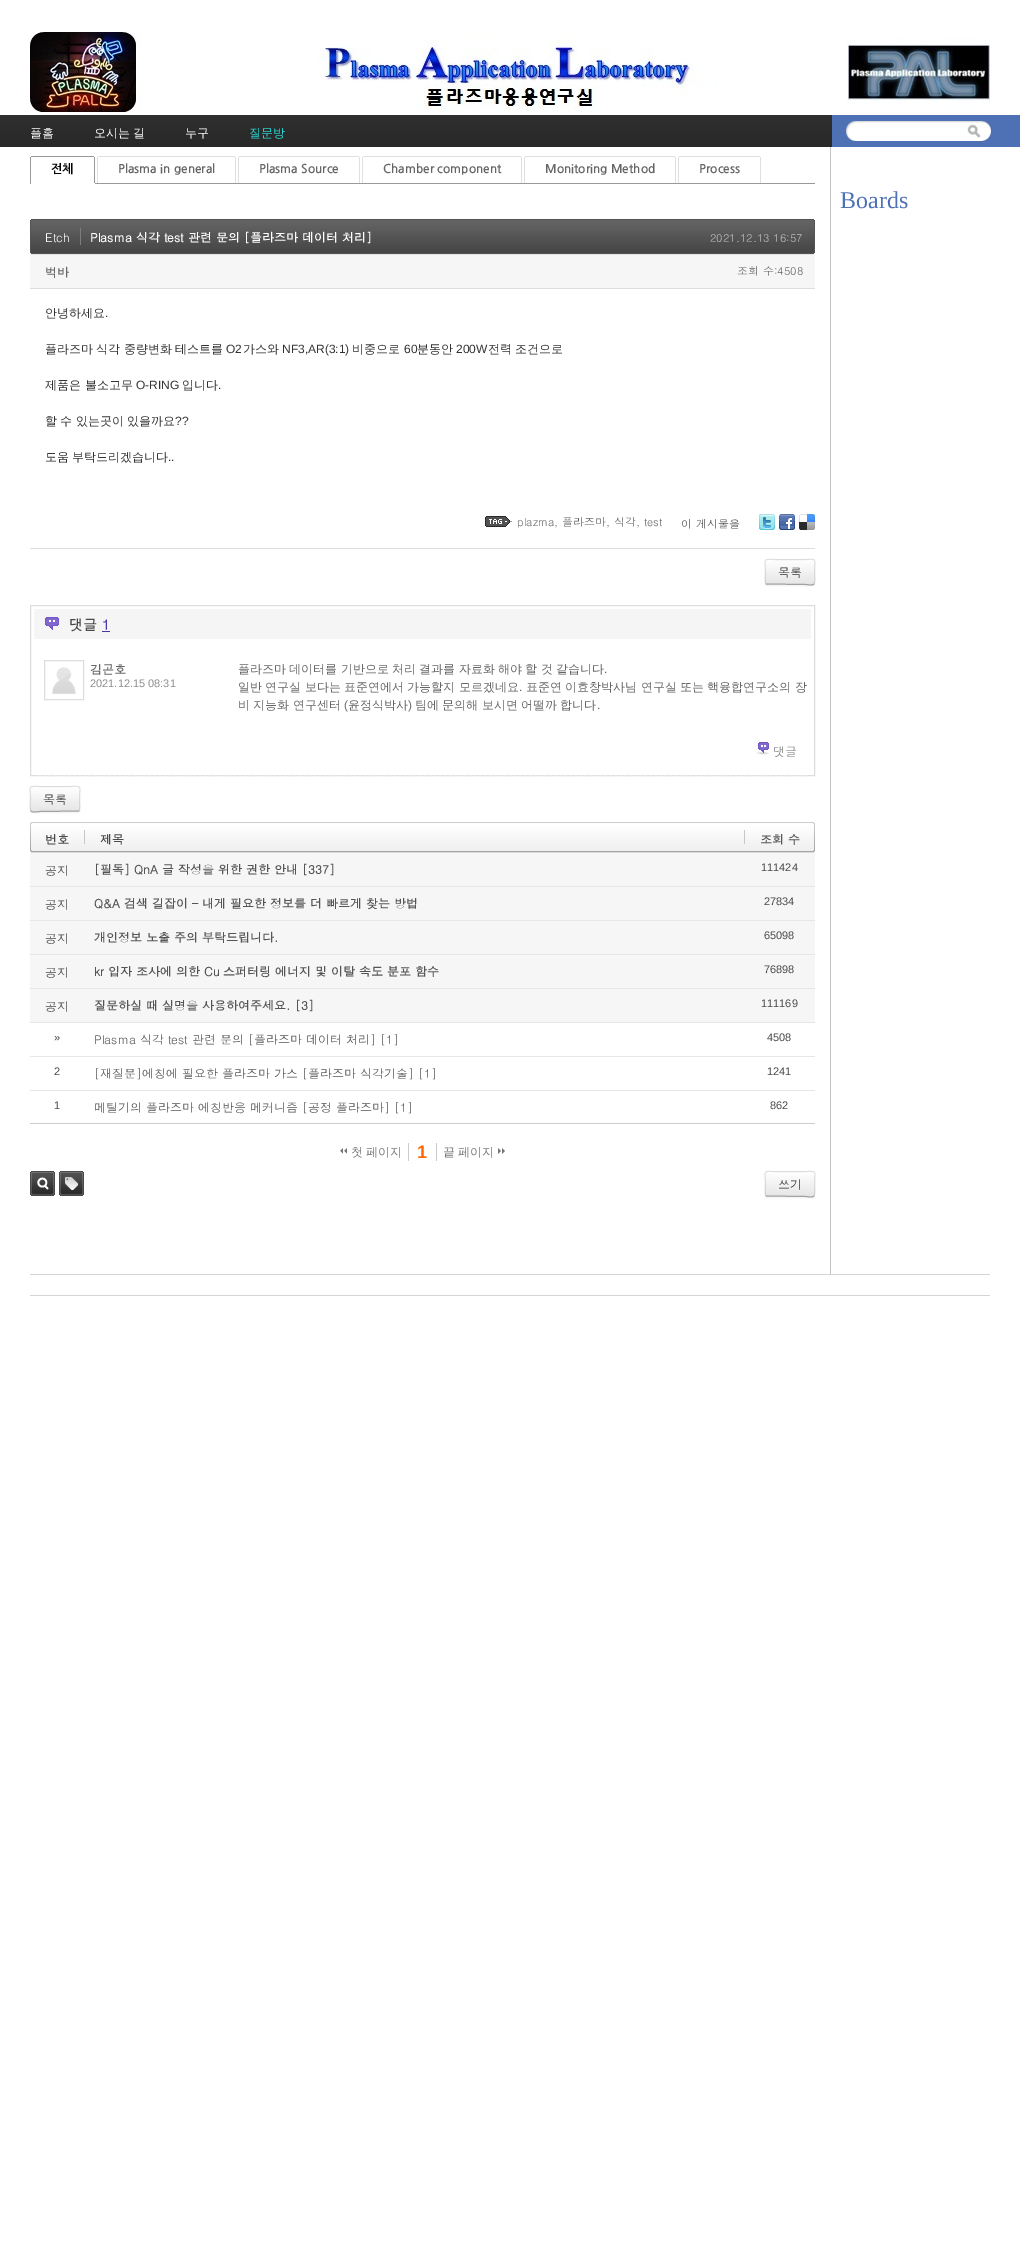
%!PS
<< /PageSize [1020 2262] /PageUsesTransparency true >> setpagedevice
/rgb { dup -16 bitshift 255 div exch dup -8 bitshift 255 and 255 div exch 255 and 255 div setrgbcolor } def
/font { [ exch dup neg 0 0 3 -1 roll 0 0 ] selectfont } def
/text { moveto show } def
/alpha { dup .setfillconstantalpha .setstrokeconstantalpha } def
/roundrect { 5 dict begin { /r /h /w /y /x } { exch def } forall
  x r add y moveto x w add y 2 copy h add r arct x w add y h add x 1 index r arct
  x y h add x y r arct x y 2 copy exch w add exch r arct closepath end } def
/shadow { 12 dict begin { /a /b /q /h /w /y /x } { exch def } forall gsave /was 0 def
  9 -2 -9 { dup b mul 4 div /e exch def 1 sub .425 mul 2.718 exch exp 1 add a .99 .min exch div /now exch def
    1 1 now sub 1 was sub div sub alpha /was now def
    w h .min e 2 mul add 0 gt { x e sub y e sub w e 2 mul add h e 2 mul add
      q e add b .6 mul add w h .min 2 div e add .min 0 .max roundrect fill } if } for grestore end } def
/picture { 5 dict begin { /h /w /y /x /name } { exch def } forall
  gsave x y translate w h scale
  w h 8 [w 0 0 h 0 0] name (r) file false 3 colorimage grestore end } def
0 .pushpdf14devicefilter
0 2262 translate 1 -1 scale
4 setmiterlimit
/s1 { /WenQuanYiZenHei-Medium 12 font 16#FFFFFF rgb } def
/s2 { /WenQuanYiZenHei-Medium 12 font 16#2ACFCD rgb } def
/s3 { /NanumGothic-Bold 12 font 16#000000 rgb } def
/s4 { /NanumGothic-Bold 12 font 16#666666 rgb } def
/s5 { /Dotum-Regular 12 font 16#FFFFFF rgb } def
/s6 { /Dotum-Bold 12 font 16#FFFFFF rgb } def
/s7 { /Dotum-Regular 11 font 16#BFBFBF rgb } def
/s8 { /Dotum-Bold 12 font 16#666666 rgb } def
/s9 { /Dotum-Regular 11 font 16#666666 rgb } def
/s10 { /WenQuanYiZenHei-Medium 12 font 16#333333 rgb } def
/s11 { /LiberationSans-Regular 12 font 16#333333 rgb } def
/s12 { /Dotum-Regular 11 font 16#555555 rgb } def
/s13 { /Dotum-Regular 12 font 16#333333 rgb } def
/s14 { /Dotum-Bold 14 font 16#4A4A4A rgb } def
/s15 { /Dotum-Bold 14 font 16#4736AC rgb } def
/s16 { /LiberationSans-Regular 11 font 16#8E8E8E rgb } def
/s17 { /LiberationSans-Regular 12 font 16#666666 rgb } def
/s18 { /WenQuanYiZenHei-Medium 12 font 16#666666 rgb } def
/s19 { /Dotum-Regular 12 font 16#767676 rgb } def
/s20 { /Dotum-Bold 12 font 16#4A4A4A rgb } def
/s21 { /Dotum-Bold 12 font 16#555555 rgb } def
/s22 { /Dotum-Regular 12 font 16#4A4A4A rgb } def
/s23 { /LiberationSans-Regular 11 font 16#4A4A4A rgb } def
/s24 { /Dotum-Regular 12 font 16#555555 rgb } def
/s25 { /LiberationSans-Bold 18 font 16#FF6600 rgb } def
/s26 { /LiberationSerif-Regular 24 font 16#4E70B5 rgb } def
16#FFFFFF rgb
0 0 1020 2262 rectfill
(pic1.raw) 0 115 1020 32 picture
(pic2.raw) 30 32 960 80 picture
s1
(플홈) 30 137 text
94 137 moveto -1 0 32 (오시는 길) widthshow
(누구) 185 137 text
s2
(질문방) 249 137 text
16#FFFFFF rgb
852 124 1 1 rectfill
(pic3.raw) 967 124 14 14 picture
16#C3C3C3 rgb
830 147 1 1127 rectfill
16#999999 rgb
95 183 720 1 rectfill
94 157 1 27 rectfill
16#FFFFFF rgb
94 183 1 1 rectfill
16#999999 rgb
30 157 1 27 rectfill
31 156 63 1 rectfill
s3
(전체) 51 173 text
16#E0E0E0 rgb
235 157 1 26 rectfill
97 157 1 26 rectfill
98 156 137 1 rectfill
s4
(Plasma in general) 118 173 text
16#E0E0E0 rgb
359 157 1 26 rectfill
238 157 1 26 rectfill
239 156 120 1 rectfill
s4
(Plasma Source) 259 173 text
16#E0E0E0 rgb
521 157 1 26 rectfill
362 157 1 26 rectfill
363 156 158 1 rectfill
s4
(Chamber component) 383 173 text
16#E0E0E0 rgb
675 157 1 26 rectfill
524 157 1 26 rectfill
525 156 150 1 rectfill
s4
(Monitoring Method) 545 173 text
16#E0E0E0 rgb
760 157 1 26 rectfill
678 157 1 26 rectfill
679 156 81 1 rectfill
s4
(Process) 699 173 text
(pic4.raw) 30 219 783 36 picture
(pic5.raw) 813 219 2 36 picture
s5
(Etch) 45 242 text
16#7E7E7E rgb
80 228 1 17 rectfill
s6
(Plasma 식각 test 관련 문의 [플라즈마 데이터 처리]) 90 242 text
s7
(2021.12.13 16:57) 710 242 text
16#F6F6F6 rgb
30 255 785 33 rectfill
16#DDDDDD rgb
30 288 785 1 rectfill
s8
(벅바) 45 277 text
s9
(조회 수:4508) 737 275 text
s10
(안녕하세요) 45 317 text
s11
(.) 105 317 text
/WenQuanYiZenHei-Medium 12 font
45 353 moveto -0.25 0 32 (플라즈마 식각 중량변화 테스트를) widthshow
s11
(O2) 226 353 text
s10
(가스와) 243 353 text
s11
(NF3,AR\(3:1\)) 282 353 text
s10
(비중으로) 352 353 text
s11
(60) 404 353 text
s10
(분동안) 417 353 text
s11
(200W) 456 353 text
/WenQuanYiZenHei-Medium 12 font
488 353 moveto -0.25 0 32 (전력 조건으로) widthshow
(제품은 불소고무) 45 389 text
s11
(O-RING) 136 389 text
s10
(입니다) 182 389 text
s11
(.) 218 389 text
/WenQuanYiZenHei-Medium 12 font
45 425 moveto -0.25 0 32 (할 수 있는곳이 있을까요) widthshow
s11
(??) 175 425 text
/WenQuanYiZenHei-Medium 12 font
45 461 moveto -0.25 0 32 (도움 부탁드리겠습니다) widthshow
s11
(..) 168 461 text
(pic6.raw) 485 516 27 11 picture
s9
(plazma, 플라즈마, 식각, test) 517 526 text
s12
(이 게시물을) 681 528 text
(pic7.raw) 759 514 16 16 picture
(pic8.raw) 779 514 16 16 picture
(pic9.raw) 799 514 16 16 picture
16#DDDDDD rgb
30 548 785 1 rectfill
16#000000 rgb
765 560 50 26 2 1 0.05 shadow
16#F5F5F5 rgb
765 559 50 26 2 roundrect fill
gsave
765 559 50 26 2 roundrect clip newpath
gsave 765 560 moveto 815 560 lineto 815 584 lineto 765 584 lineto closepath clip newpath
<< /ShadingType 2 /ColorSpace /DeviceRGB /Coords [790 560 790 584] /Extend [true true] /Function << /FunctionType 2 /Domain [0 1] /C0 [1 1 1] /C1 [0.902 0.902 0.902] /N 1 >> >> shfill grestore
grestore
16#FEFEFE rgb
767 561 moveto 813 561 lineto 814 562 lineto 814 558 811 560 805 560 curveto 775 560 lineto 768 560 766 558 766 563 curveto closepath fill
16#A2A2A2 rgb
814 584 moveto 812 586 808.5 584.5 805.5 584.5 curveto 766 584 lineto stroke
0.1 alpha
16#000000 rgb
766 584 moveto 764.5 582.5 765.5 574 765.5 572 curveto 765.5 558 762.5 559.5 774.5 559.5 curveto 805.5 559.5 lineto 817.5 559.5 814.5 558 814.5 572 curveto 814.5 574 815.5 582.5 814 584 curveto stroke
1 alpha
s13
(목록) 778 577 text
16#DDDDDD rgb
30.5 605.5 784 170 rectstroke
16#F5F5F5 rgb
34 609 777 30 rectfill
(pic10.raw) 45 617 14 13 picture
s14
(댓글) 69 630 text
s15
(1) 102 630 text
102 631 8 1 rectfill
16#E6E6E6 rgb
[3 2.01] 0 setdash
38 775.5 moveto 807 775.5 lineto stroke
(pic11.raw) 52 667 24 27 picture
16#DDDDDD rgb
[] 0 setdash
44.5 660.5 39 39 rectstroke
s8
(김곤호) 90 674 text
s16
(2021.12.15 08:31) 90 687 text
/WenQuanYiZenHei-Medium 12 font
16#666666 rgb
238 673 moveto -0.25 0 32 (플라즈마 데이터를 기반으로 처리 결과를 자료화 해야 할 것 같습니다) widthshow
s17
(.) 604 673 text
/WenQuanYiZenHei-Medium 12 font
238 691 moveto -0.25 0 32 (일반 연구실 보다는 표준연에서 가능할지 모르겠네요) widthshow
s17
(.) 519 691 text
/WenQuanYiZenHei-Medium 12 font
526 691 moveto -0.25 0 32 (표준연 이효창박사님 연구실 또는 핵융합연구소의 장) widthshow
238 709 moveto -0.25 0 32 (비 지능화 연구센터) widthshow
s17
(\() 344 709 text
s18
(윤정식박사) 348 709 text
s17
(\)) 408 709 text
/WenQuanYiZenHei-Medium 12 font
415 709 moveto -0.25 0 32 (팀에 문의해 보시면 어떨까 합니다) widthshow
s17
(.) 597 709 text
(pic12.raw) 756 742 13 13 picture
s19
(댓글) 773 756 text
16#000000 rgb
30 787 50 26 2 1 0.05 shadow
16#F5F5F5 rgb
30 786 50 26 2 roundrect fill
gsave
30 786 50 26 2 roundrect clip newpath
gsave 30 787 moveto 80 787 lineto 80 811 lineto 30 811 lineto closepath clip newpath
<< /ShadingType 2 /ColorSpace /DeviceRGB /Coords [55 787 55 811] /Extend [true true] /Function << /FunctionType 2 /Domain [0 1] /C0 [1 1 1] /C1 [0.902 0.902 0.902] /N 1 >> >> shfill grestore
grestore
16#FEFEFE rgb
32 788 moveto 78 788 lineto 79 789 lineto 79 785 76 787 70 787 curveto 40 787 lineto 33 787 31 785 31 790 curveto closepath fill
16#A2A2A2 rgb
79 811 moveto 39.5 811.5 lineto 36.5 811.5 33 813 31 811 curveto stroke
0.1 alpha
16#000000 rgb
31 811 moveto 29.5 809.5 30.5 801 30.5 799 curveto 30.5 785 27.5 786.5 39.5 786.5 curveto 70.5 786.5 lineto 82.5 786.5 79.5 785 79.5 799 curveto 79.5 801 80.5 809.5 79 811 curveto stroke
1 alpha
s13
(목록) 43 804 text
(pic13.raw) 30 822 783 31 picture
(pic14.raw) 813 822 2 31 picture
16#CDCDCD rgb
30 1123 785 1 rectfill
s20
(번호) 45 844 text
16#C7C7C7 rgb
84 830 1 14 rectfill
s20
(제목) 100 844 text
16#C7C7C7 rgb
744 830 1 14 rectfill
s21
(조회 수) 760 844 text
16#F6F6F6 rgb
30 853 785 33 rectfill
16#E6E6E6 rgb
30 886 785 1 rectfill
s22
(공지) 45 875 text
s21
([필독] QnA 글 작성을 위한 권한 안내 [337]) 94 874 text
s23
(111424) 761 871 text
16#F6F6F6 rgb
30 887 785 33 rectfill
16#E6E6E6 rgb
30 920 785 1 rectfill
s22
(공지) 45 909 text
s21
(Q&A 검색 길잡이 – 내게 필요한 정보를 더 빠르게 찾는 방법) 94 908 text
s23
(27834) 764 905 text
16#F6F6F6 rgb
30 921 785 33 rectfill
16#E6E6E6 rgb
30 954 785 1 rectfill
s22
(공지) 45 943 text
s21
(개인정보 노출 주의 부탁드립니다.) 94 942 text
s23
(65098) 764 939 text
16#F6F6F6 rgb
30 955 785 33 rectfill
16#E6E6E6 rgb
30 988 785 1 rectfill
s22
(공지) 45 977 text
s21
(kr 입자 조사에 의한 Cu 스퍼터링 에너지 및 이탈 속도 분포 함수) 94 976 text
s23
(76898) 764 973 text
16#F6F6F6 rgb
30 989 785 33 rectfill
16#E6E6E6 rgb
30 1022 785 1 rectfill
s22
(공지) 45 1011 text
s21
(질문하실 때 실명을 사용하여주세요. [3]) 94 1010 text
s23
(111169) 761 1007 text
16#E6E6E6 rgb
30 1056 785 1 rectfill
s23
(») 54 1041 text
s24
(Plasma 식각 test 관련 문의 [플라즈마 데이터 처리] [1]) 94 1044 text
s23
(4508) 767 1041 text
16#E6E6E6 rgb
30 1090 785 1 rectfill
s23
(2) 54 1075 text
s24
([재질문]에칭에 필요한 플라즈마 가스 [플라즈마 식각기술] [1]) 94 1078 text
s23
(1241) 767 1075 text
(1) 54 1109 text
s24
(메틸기의 플라즈마 에칭반응 메커니즘 [공정 플라즈마] [1]) 94 1112 text
s23
(862) 770 1109 text
16#767676 rgb
343 1148 moveto 343 1154 lineto 340 1151 lineto closepath fill
16#FFFFFF rgb
343 1154 moveto 340 1154 lineto 340 1151 lineto closepath fill
16#767676 rgb
347 1148 moveto 347 1154 lineto 344 1151 lineto closepath fill
16#FFFFFF rgb
347 1154 moveto 344 1154 lineto 344 1151 lineto closepath fill
/WenQuanYiZenHei-Medium 12 font
16#767676 rgb
351 1156 moveto -0.25 0 32 (첫 페이지) widthshow
16#CCCCCC rgb
436 1143 1 18 rectfill
408 1143 1 18 rectfill
s25
(1) 417 1158 text
/WenQuanYiZenHei-Medium 12 font
16#767676 rgb
443 1156 moveto -0.25 0 32 (끝 페이지) widthshow
498 1154 moveto 498 1148 lineto 501 1151 lineto closepath 502 1154 moveto 502 1148 lineto 505 1151 lineto closepath fill
(pic15.raw) 30 1171 25 25 picture
(pic16.raw) 59 1171 25 25 picture
16#000000 rgb
765 1172 50 26 2 1 0.05 shadow
16#F5F5F5 rgb
765 1171 50 26 2 roundrect fill
gsave
765 1171 50 26 2 roundrect clip newpath
gsave 765 1172 moveto 815 1172 lineto 815 1196 lineto 765 1196 lineto closepath clip newpath
<< /ShadingType 2 /ColorSpace /DeviceRGB /Coords [790 1172 790 1196] /Extend [true true] /Function << /FunctionType 2 /Domain [0 1] /C0 [1 1 1] /C1 [0.902 0.902 0.902] /N 1 >> >> shfill grestore
grestore
16#FEFEFE rgb
767 1173 moveto 813 1173 lineto 814 1174 lineto 814 1170 811 1172 805 1172 curveto 775 1172 lineto 768 1172 766 1170 766 1175 curveto closepath fill
16#A2A2A2 rgb
814 1196 moveto 812 1198 808.5 1196.5 805.5 1196.5 curveto 766 1196 lineto stroke
0.1 alpha
16#000000 rgb
766 1196 moveto 764.5 1194.5 765.5 1186 765.5 1184 curveto 765.5 1170 762.5 1171.5 774.5 1171.5 curveto 805.5 1171.5 lineto 817.5 1171.5 814.5 1170 814.5 1184 curveto 814.5 1186 815.5 1194.5 814 1196 curveto stroke
1 alpha
s13
(쓰기) 778 1189 text
s26
(Boards) 840 208 text
16#D4D4D4 rgb
30 1274 960 1 rectfill
30 1295 960 1 rectfill
.poppdf14devicefilter showpage
